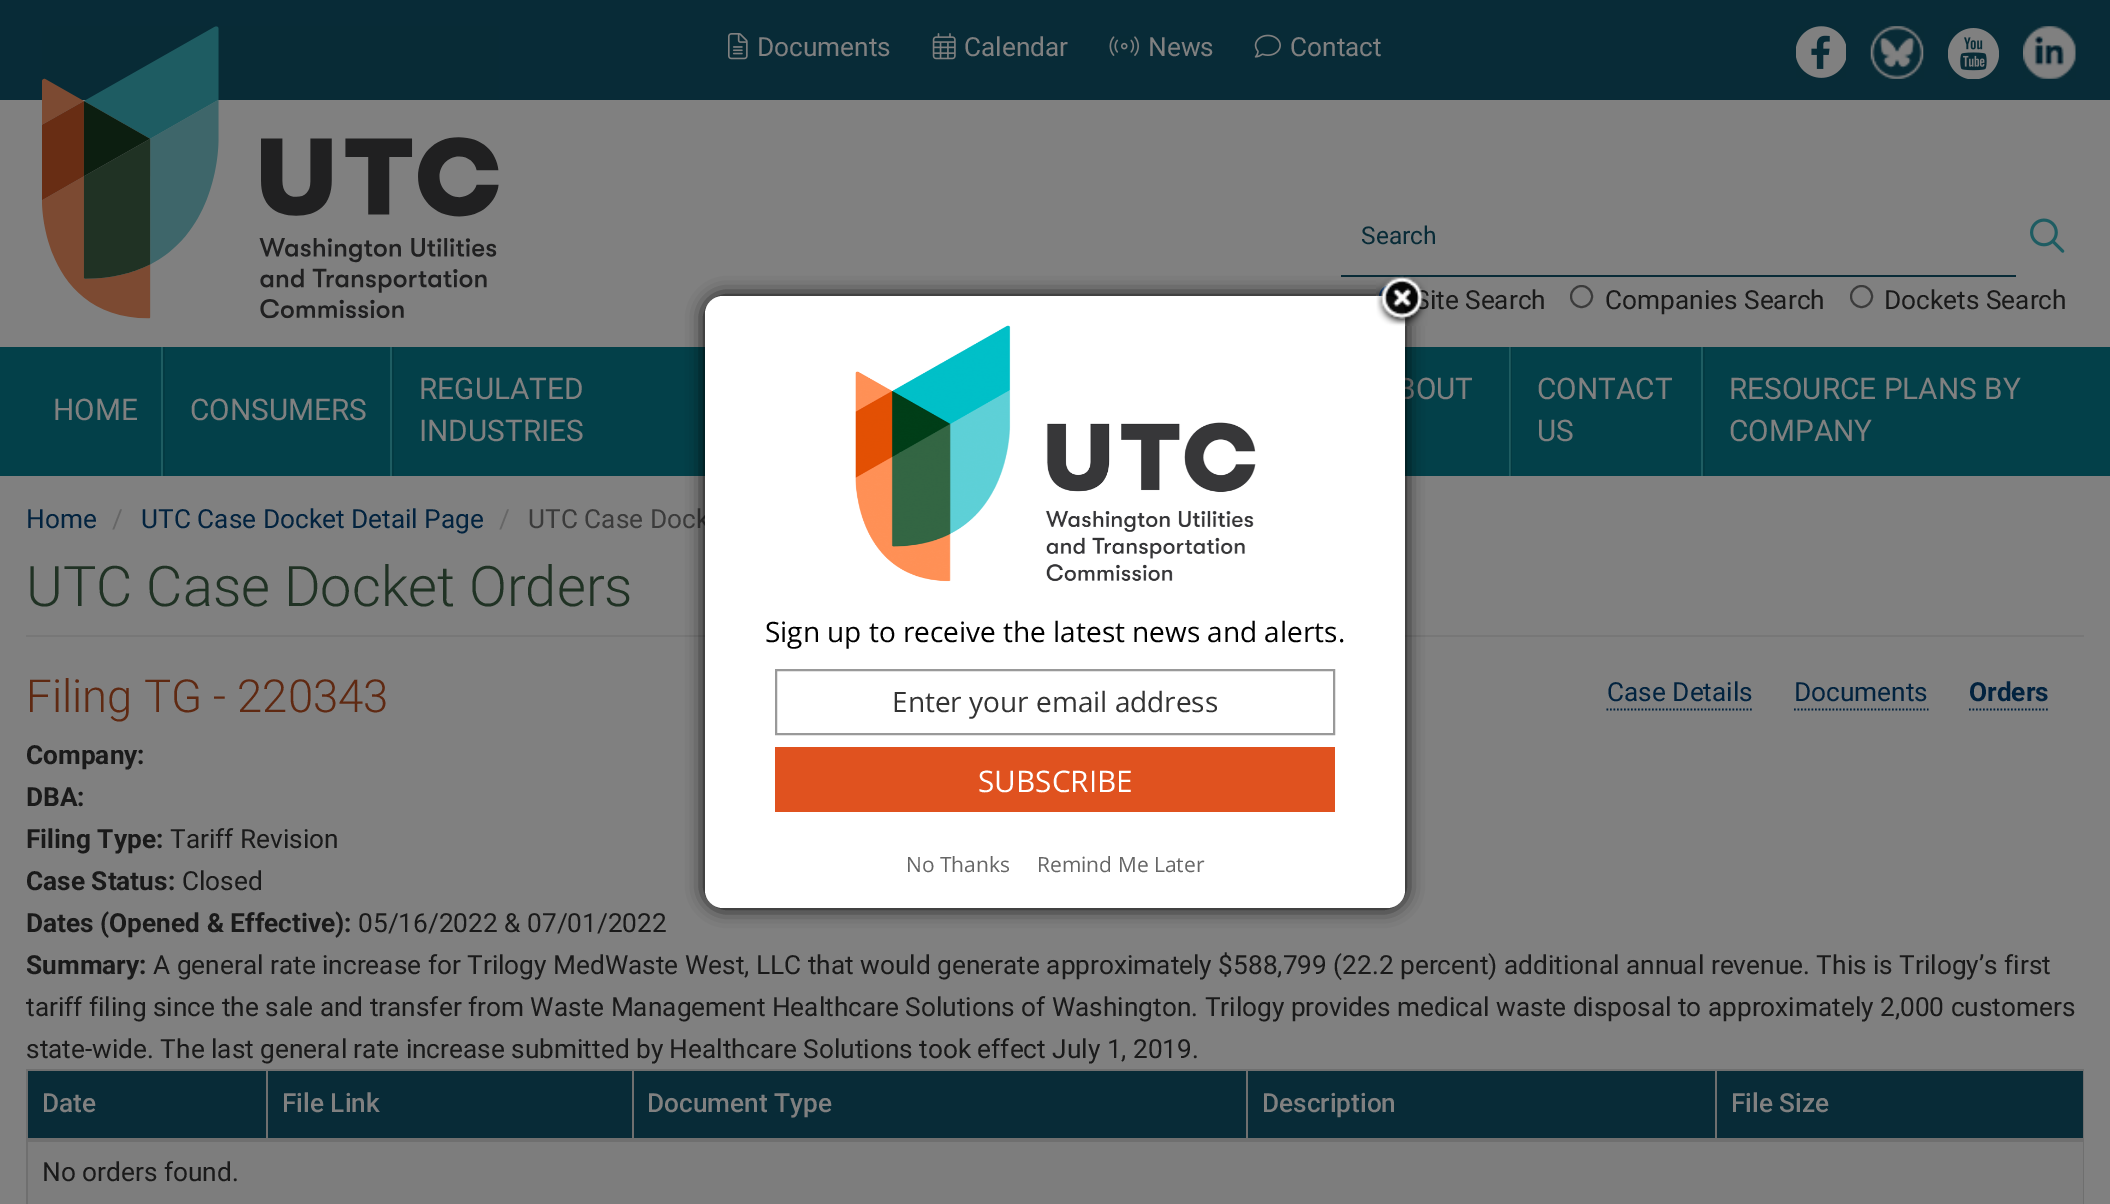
%!PS
<< /PageSize [2110 1204] /PageUsesTransparency true >> setpagedevice
/rgb { dup -16 bitshift 255 div exch dup -8 bitshift 255 and 255 div exch 255 and 255 div setrgbcolor } def
/font { [ exch dup neg 0 0 3 -1 roll 0 0 ] selectfont } def
/text { moveto show } def
/alpha { dup .setfillconstantalpha .setstrokeconstantalpha } def
/circle { newpath 0 360 arc closepath } def
/roundrect { 5 dict begin { /r /h /w /y /x } { exch def } forall
  x r add y moveto x w add y 2 copy h add r arct x w add y h add x 1 index r arct
  x y h add x y r arct x y 2 copy exch w add exch r arct closepath end } def
/shadow { 12 dict begin { /a /b /q /h /w /y /x } { exch def } forall gsave /was 0 def
  9 -2 -9 { dup b mul 4 div /e exch def 1 sub .425 mul 2.718 exch exp 1 add a .99 .min exch div /now exch def
    1 1 now sub 1 was sub div sub alpha /was now def
    w h .min e 2 mul add 0 gt { x e sub y e sub w e 2 mul add h e 2 mul add
      q e add b .6 mul add w h .min 2 div e add .min 0 .max roundrect fill } if } for grestore end } def
/picture { 5 dict begin { /h /w /y /x /name } { exch def } forall
  gsave x y translate w h scale
  w h 8 [w 0 0 h 0 0] name (r) file false 3 colorimage grestore end } def
0 .pushpdf14devicefilter
0 1204 translate 1 -1 scale
4 setmiterlimit
/s1 { /Roboto-Regular 26.25 font 16#808080 rgb } def
/s2 { /Roboto-Regular 24.5 font 16#082B37 rgb } def
/s3 { /Roboto-Regular 26.25 font 16#1A1A1A rgb } def
/s4 { /Roboto-Regular 29.75 font 16#808080 rgb } def
/s5 { /Roboto-Regular 26.25 font 16#02233F rgb } def
/s6 { /Roboto-Regular 26.25 font 16#666666 rgb } def
/s7 { /Roboto-Regular 26.25 font 16#3B3B3B rgb } def
/s8 { /Roboto-Light 56 font 16#203224 rgb } def
/s9 { /Roboto-Light 45.5 font 16#5F2912 rgb } def
/s10 { /Roboto-Bold 26.25 font 16#02233F rgb } def
/s11 { /Roboto-Bold 26.25 font 16#1A1A1A rgb } def
/s12 { /Roboto-Medium 26.25 font 16#808080 rgb } def
/s13 { /OpenSans-Regular 28 font 16#000000 rgb } def
/s14 { /OpenSans-Regular 28 font 16#333333 rgb } def
/s15 { /OpenSans-Regular 29.75 font 16#FFFFFF rgb } def
/s16 { /OpenSans-Regular 21 font 16#666666 rgb } def
16#808080 rgb
0 0 2110 1204 rectfill
16#082B37 rgb
0 0 2110 100 rectfill
(pic1.raw) 728 33 20 27 picture
s1
(Documents) 757 56 text
(pic2.raw) 932 33 24 27 picture
(Calendar) 964 56 text
(pic3.raw) 1109 36 30 20 picture
(News) 1148 56 text
(pic4.raw) 1254 34 27 24 picture
(Contact) 1290 56 text
(pic5.raw) 1796 26 50 52 picture
(pic6.raw) 1870 26 54 53 picture
(pic7.raw) 1948 28 51 51 picture
(pic8.raw) 2023 26 53 53 picture
(pic9.raw) 42 26 457 293 picture
16#082B37 rgb
1341 275 675 2 rectfill
s2
(Search) 1361 244 text
(pic10.raw) 2030 218 35 35 picture
16#003B80 rgb
2 setlinewidth
1390.5 296.5 10.5 circle stroke
s3
(Site Search) 1414 309 text
16#3B3B3B rgb
1581.5 296.5 10.5 circle stroke
s3
(Companies Search) 1605 309 text
16#3B3B3B rgb
1861.5 296.5 10.5 circle stroke
s3
(Dockets Search) 1884 309 text
16#034049 rgb
0 347 2110 129 rectfill
16#033A42 rgb
1511 347 1 129 rectfill
16#1E5D62 rgb
161 347 2 129 rectfill
s4
(HOME) 53 420 text
16#033A42 rgb
163 347 2 129 rectfill
16#1E5D62 rgb
390 347 2 129 rectfill
s4
(CONSUMERS) 190 420 text
16#033A42 rgb
392 347 2 129 rectfill
s4
(REGULATED) 419 399 text
(INDUSTRIES) 419 441 text
16#1E5D62 rgb
1509 347 1 129 rectfill
16#1B5458 rgb
1510 347 1 129 rectfill
s4
(BOUT) 1397 399 text
16#1E5D62 rgb
1701 347 2 129 rectfill
s4
(CONTACT) 1537 399 text
(US) 1537 441 text
16#033A42 rgb
1703 347 2 129 rectfill
s4
(RESOURCE PLANS BY) 1729 399 text
(COMPANY) 1729 441 text
s5
(Home) 26 528 text
s6
(/) 112 528 text
s5
(UTC Case Docket Detail Page) 141 528 text
s6
(/) 499 528 text
s7
(UTC Case Dock) 528 528 text
16#777777 rgb
26 635 2058 2 rectfill
s8
(UTC Case Docket Orders) 26 606 text
s9
(Filing TG - 220343) 26 712 text
s5
(Case Details) 1607 701 text
1.8 setlinewidth
[1.75 1.75] 0 setdash
1606.5 709.5 moveto 1752 709.5 lineto stroke
(Documents) 1794 701 text
1794 709.5 moveto 1928.5 709.5 lineto stroke
s10
(Orders) 1969 701 text
1969 709.5 moveto 2049 709.5 lineto stroke
s11
(Company:) 26 764 text
(DBA:) 26 806 text
(Filing Type:) 26 848 text
s3
(Tariff Revision) 170 848 text
s11
(Case Status:) 26 890 text
s3
(Closed) 182 890 text
s11
(Dates \(Opened & Effective\):) 26 932 text
s3
(05/16/2022 & 07/01/2022) 358 932 text
s11
(Summary:) 26 974 text
s3
(A general rate increase for Trilogy MedWaste West, LLC that would generate approximately $588,799 \(22.2 percent\) additional annual revenue. This is Trilogy’s first) 153 974 text
(tariff filing since the sale and transfer from Waste Management Healthcare Solutions of Washington. Trilogy provides medical waste disposal to approximately 2,000 customers) 26 1016 text
(state-wide. The last general rate increase submitted by Healthcare Solutions took effect July 1, 2019.) 26 1058 text
16#6F6F6F rgb
26 1069 2058 2 rectfill
2083 1069 1 135 rectfill
26 1069 2 135 rectfill
16#082B37 rgb
28 1071 238 67 rectfill
s12
(Date) 42 1112 text
16#082B37 rgb
268 1071 364 67 rectfill
16#6F6F6F rgb
266 1069 2 70 rectfill
s12
(File Link) 282 1112 text
16#082B37 rgb
634 1071 612 67 rectfill
16#6F6F6F rgb
632 1069 2 70 rectfill
s12
(Document Type) 647 1112 text
16#082B37 rgb
1248 1071 467 67 rectfill
16#6F6F6F rgb
1246 1069 2 70 rectfill
s12
(Description) 1262 1112 text
16#082B37 rgb
1717 1071 366 67 rectfill
16#6F6F6F rgb
1715 1069 2 70 rectfill
26 1138 2058 4 rectfill
s12
(File Size) 1731 1112 text
16#7D7D7D rgb
28 1142 2055 62 rectfill
s3
(No orders found.) 42 1181 text
16#000000 rgb
705 296 700 612 18 9 1 shadow
16#FFFFFF rgb
705 296 700 612 18 roundrect fill
(pic11.raw) 1376 275 52 51 picture
(pic12.raw) 855 325 401 257 picture
s13
(Sign up to receive the latest news and alerts.) 765 642 text
16#999999 rgb
2 setlinewidth
[] 0 setdash
776 670 558 64 rectstroke
s14
(Enter your email address) 892 712 text
16#E0521F rgb
775 747 560 65 rectfill
s15
(SUBSCRIBE) 978 792 text
s16
(No Thanks) 906 872 text
(Remind Me Later) 1037 872 text
.poppdf14devicefilter showpage
